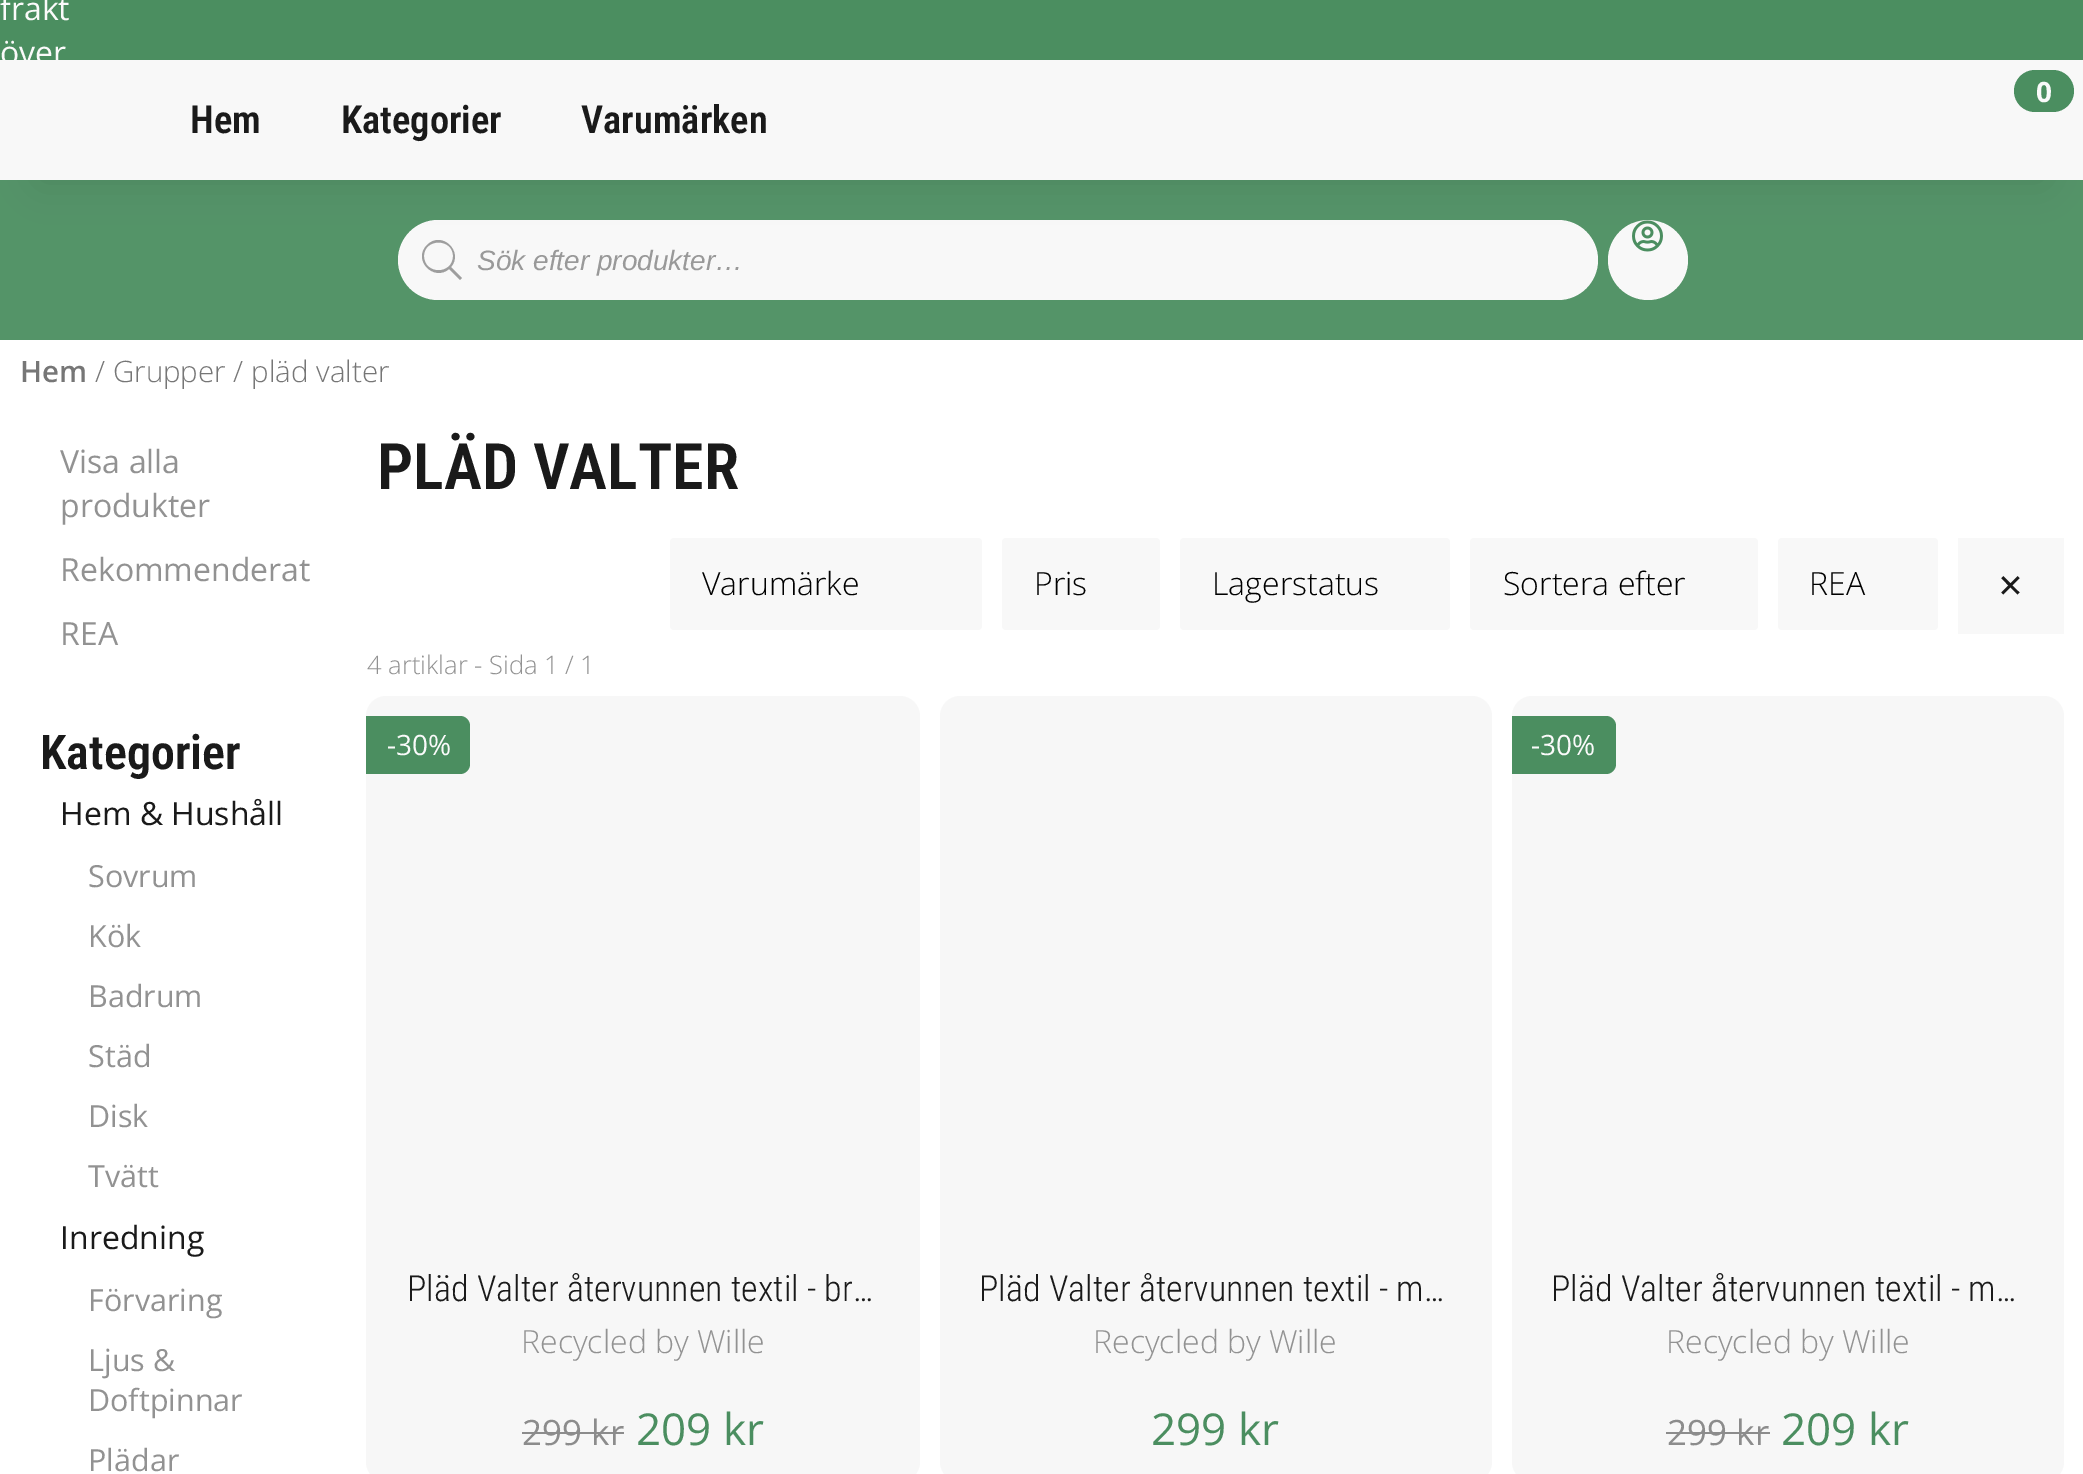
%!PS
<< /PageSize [2083 1474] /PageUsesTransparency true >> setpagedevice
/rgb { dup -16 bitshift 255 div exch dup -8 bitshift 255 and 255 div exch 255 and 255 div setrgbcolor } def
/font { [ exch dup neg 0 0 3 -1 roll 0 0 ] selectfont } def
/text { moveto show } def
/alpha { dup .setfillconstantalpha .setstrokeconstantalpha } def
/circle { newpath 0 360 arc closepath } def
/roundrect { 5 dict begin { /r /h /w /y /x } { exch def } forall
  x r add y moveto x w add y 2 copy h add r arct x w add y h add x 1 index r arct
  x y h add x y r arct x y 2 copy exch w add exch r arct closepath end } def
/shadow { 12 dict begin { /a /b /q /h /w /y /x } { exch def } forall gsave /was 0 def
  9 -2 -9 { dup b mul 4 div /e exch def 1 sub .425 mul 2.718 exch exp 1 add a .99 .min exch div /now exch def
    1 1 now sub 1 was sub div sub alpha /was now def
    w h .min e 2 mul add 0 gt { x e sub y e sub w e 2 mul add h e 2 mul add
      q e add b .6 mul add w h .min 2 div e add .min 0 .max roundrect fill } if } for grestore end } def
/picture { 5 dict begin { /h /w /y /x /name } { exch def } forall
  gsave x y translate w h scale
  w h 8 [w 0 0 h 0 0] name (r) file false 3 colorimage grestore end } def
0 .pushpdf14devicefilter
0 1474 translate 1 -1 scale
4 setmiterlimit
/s1 { /OpenSans-Regular 32 font 16#FAFAFA rgb } def
/s2 { /OpenSans-Bold 28 font 16#FAFAFA rgb } def
/s3 { /RobotoCondensed-SemiBold 38.5 font 16#1A1A1A rgb } def
/s4 { /LiberationSans-Italic 28 font 16#999999 rgb } def
/s5 { /OpenSans-SemiBold 29.5 font 16#767676 rgb } def
/s6 { /OpenSans-Light 29.5 font 16#767676 rgb } def
/s7 { /OpenSans-Regular 32 font 16#929292 rgb } def
/s8 { /RobotoCondensed-SemiBold 48 font 16#1A1A1A rgb } def
/s9 { /OpenSans-Regular 32 font 16#1A1A1A rgb } def
/s10 { /OpenSans-Regular 30.5 font 16#929292 rgb } def
/s11 { /RobotoCondensed-SemiBold 64 font 16#1A1A1A rgb } def
/s12 { /OpenSans-Light 32 font 16#000000 rgb } def
/s13 { /DejaVuSans-Regular 32 font 16#1A1A1A rgb } def
/s14 { /OpenSans-Light 25.5 font 16#929292 rgb } def
/s15 { /OpenSans-Regular 28 font 16#FAFAFA rgb } def
/s16 { /RobotoCondensed-Light 36 font 16#1A1A1A rgb } def
/s17 { /OpenSans-Light 32 font 16#929292 rgb } def
/s18 { /OpenSans-Regular 35 font 16#8C8C8C rgb } def
/s19 { /OpenSans-Regular 44 font 16#4B8E60 rgb } def
16#FFFFFF rgb
0 0 2083 1474 rectfill
16#4B8E60 rgb
0 0 2083 60 rectfill
s1
(frakt) 0 20 text
(över) 0 64 text
16#549468 rgb
0 180 2083 160 rectfill
16#F8F8F8 rgb
398 220 1200 80 40 roundrect fill
16#9E9E9E rgb
462 278 moveto 451 267 lineto 464 252 442 230 427 245 curveto 412 260 434 282 449 269 curveto 460 280 lineto closepath 424 256 moveto 424 238 453 238 453 256 curveto 453 275 424 275 424 256 curveto closepath fill
16#F8F8F8 rgb
1648 260 40 circle fill
(pic1.raw) 1632 220 31 32 picture
16#000000 rgb
40 140 2004 40 0 20 0.1 shadow
16#F8F8F8 rgb
0 60 2083 120 rectfill
16#4B8E60 rgb
2014 70 60 42 21 roundrect fill
s2
(0) 2036 102 text
s3
(Hem) 190 133 text
(Kategorier) 341 133 text
(Varumärken) 581 133 text
s4
(Sök efter produkter…) 477 270 text
s5
(Hem) 20 382 text
s6
(/ Grupper / pläd valter) 95 382 text
s7
(Visa alla) 60 473 text
(produkter) 60 517 text
(Rekommenderat) 60 581 text
(REA) 60 645 text
s8
(Kategorier) 40 769 text
s9
(Hem & Hushåll) 60 825 text
s10
(Sovrum) 88 887 text
(Kök) 88 947 text
(Badrum) 88 1007 text
(Städ) 88 1067 text
(Disk) 88 1127 text
(Tvätt) 88 1187 text
s9
(Inredning) 60 1249 text
s10
(Förvaring) 88 1311 text
(Ljus &) 88 1371 text
(Doftpinnar) 88 1411 text
(Plädar) 88 1471 text
s11
(PLÄD VALTER) 377 489 text
16#F8F8F8 rgb
670 538 312 92 4 roundrect fill
s12
(Varumärke) 702 595 text
16#F8F8F8 rgb
1002 538 158 92 4 roundrect fill
s12
(Pris) 1034 595 text
16#F8F8F8 rgb
1180 538 270 92 4 roundrect fill
s12
(Lagerstatus) 1212 595 text
16#F8F8F8 rgb
1470 538 288 92 4 roundrect fill
s12
(Sortera efter) 1503 595 text
16#F8F8F8 rgb
1778 538 160 92 4 roundrect fill
s12
(REA) 1809 595 text
16#F8F8F8 rgb
1958 538 106 96 rectfill
s13
(✕) 1997 597 text
s14
(4 artiklar - Sida 1 / 1) 367 674 text
16#F7F7F7 rgb
366 696 554 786 20 roundrect fill
16#4B8E60 rgb
366 716 moveto 460 716 lineto 465.5 716 470 720.5 470 726 curveto 470 764 lineto 470 769.5 465.5 774 460 774 curveto 366 774 lineto closepath fill
s15
(-30%) 387 755 text
s16
(Pläd Valter återvunnen textil - br…) 407 1301 text
s17
(Recycled by Wille) 521 1353 text
s18
(299 kr) 522 1445 text
522 1432 102 2 rectfill
s19
(209 kr) 636 1445 text
16#F7F7F7 rgb
940 696 552 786 20 roundrect fill
s16
(Pläd Valter återvunnen textil - m…) 979 1301 text
s17
(Recycled by Wille) 1093 1353 text
s19
(299 kr) 1151 1445 text
16#F7F7F7 rgb
1512 696 552 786 20 roundrect fill
16#4B8E60 rgb
1512 716 moveto 1606 716 lineto 1611.5 716 1616 720.5 1616 726 curveto 1616 764 lineto 1616 769.5 1611.5 774 1606 774 curveto 1512 774 lineto closepath fill
s15
(-30%) 1531 755 text
s16
(Pläd Valter återvunnen textil - m…) 1551 1301 text
s17
(Recycled by Wille) 1666 1353 text
s18
(299 kr) 1667 1445 text
1666 1432 104 2 rectfill
s19
(209 kr) 1781 1445 text
.poppdf14devicefilter showpage
